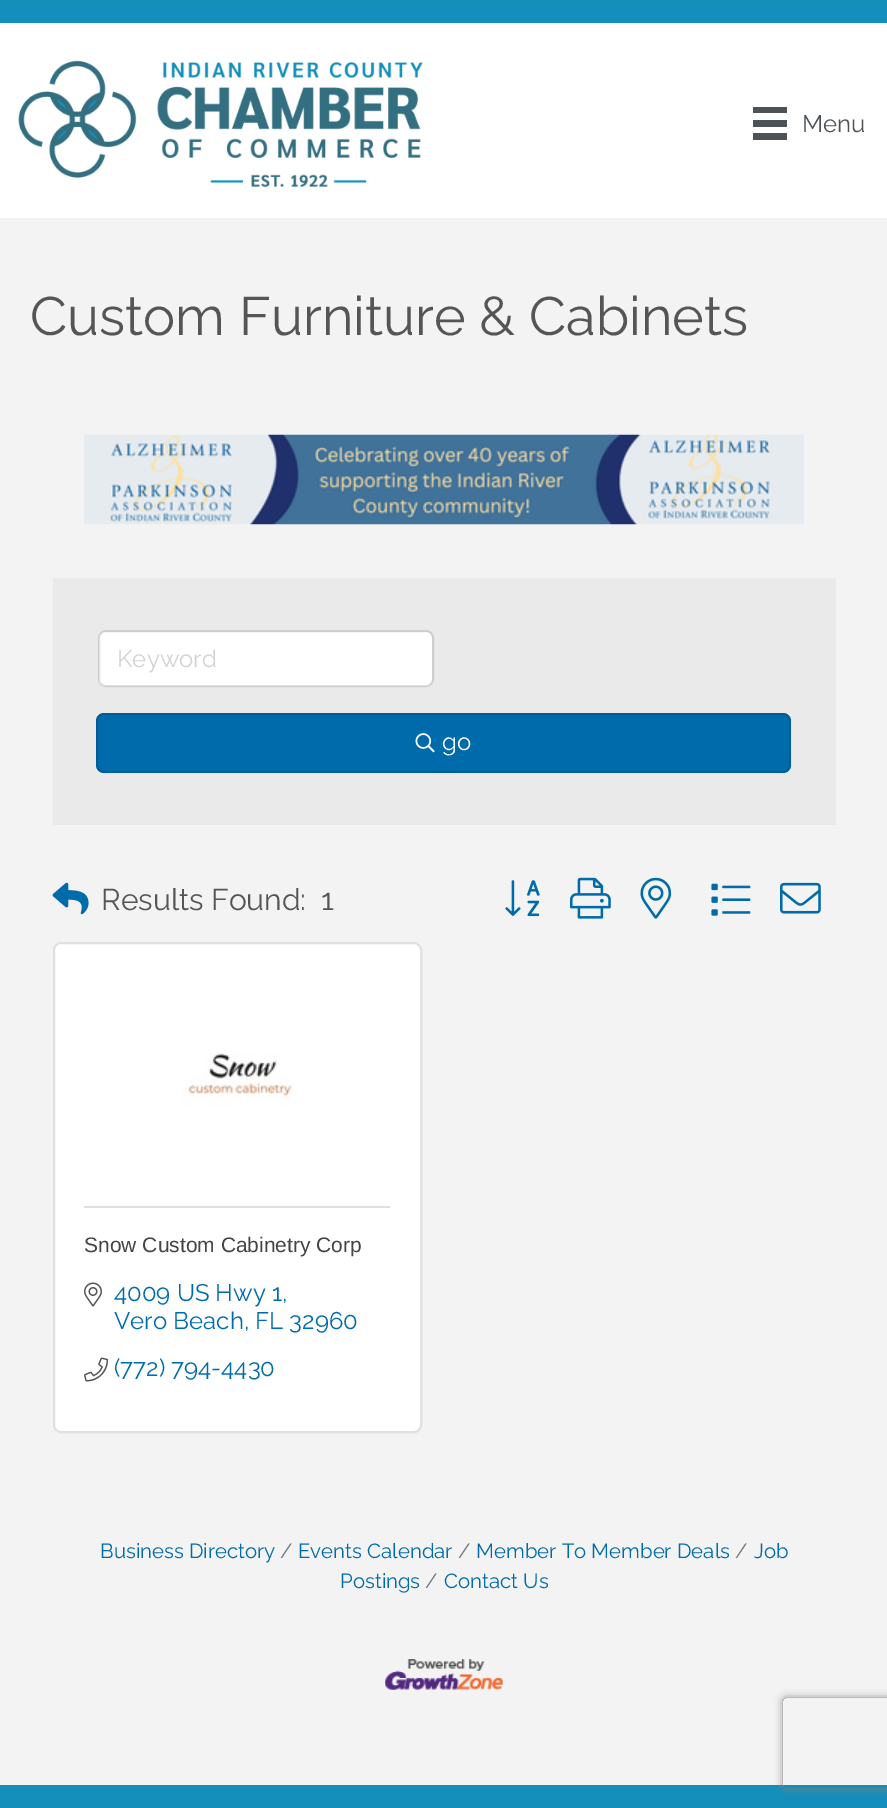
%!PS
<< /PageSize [887 1808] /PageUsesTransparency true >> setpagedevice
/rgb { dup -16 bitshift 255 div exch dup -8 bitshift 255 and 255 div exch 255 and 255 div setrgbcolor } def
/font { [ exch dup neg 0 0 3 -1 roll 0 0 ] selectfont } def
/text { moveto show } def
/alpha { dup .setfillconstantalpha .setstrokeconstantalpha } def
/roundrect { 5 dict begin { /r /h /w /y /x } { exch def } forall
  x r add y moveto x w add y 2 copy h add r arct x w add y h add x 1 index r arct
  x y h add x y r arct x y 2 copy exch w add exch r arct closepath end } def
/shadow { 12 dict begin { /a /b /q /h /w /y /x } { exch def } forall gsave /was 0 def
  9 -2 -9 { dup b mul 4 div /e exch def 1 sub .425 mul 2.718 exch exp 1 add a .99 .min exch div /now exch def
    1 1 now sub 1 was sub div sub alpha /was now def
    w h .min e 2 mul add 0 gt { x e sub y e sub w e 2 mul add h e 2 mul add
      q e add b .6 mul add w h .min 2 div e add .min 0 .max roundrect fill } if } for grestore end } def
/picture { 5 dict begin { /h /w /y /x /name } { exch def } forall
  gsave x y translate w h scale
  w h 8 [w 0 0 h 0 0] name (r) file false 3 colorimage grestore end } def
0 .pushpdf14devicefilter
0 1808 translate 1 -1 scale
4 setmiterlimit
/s1 { /Raleway-Regular 24 font 16#4C5256 rgb } def
/s2 { /Raleway-Regular 54 font 16#555555 rgb } def
/s3 { /Raleway-Regular 24 font 16#D2D2D2 rgb } def
/s4 { /Raleway-Regular 24 font 16#FFFFFF rgb } def
/s5 { /Raleway-Regular 30 font 16#555555 rgb } def
/s6 { /LiberationSans-Regular 21 font 16#444444 rgb } def
/s7 { /Raleway-Regular 24 font 16#006BAA rgb } def
/s8 { /Raleway-Regular 20.4 font 16#006BAA rgb } def
/s9 { /Raleway-Regular 20.4 font 16#6C757D rgb } def
16#FFFFFF rgb
0 0 887 1808 rectfill
16#148EBA rgb
0 0 887 23 rectfill
(pic1.raw) 18 60 405 127 picture
16#4C5256 rgb
753 107 34 6 rectfill
753 120 34 7 rectfill
753 133 34 7 rectfill
s1
(Menu) 802 132 text
16#F3F3F3 rgb
0 218 887 1567 rectfill
s2
(Custom Furniture & Cabinets) 30 335 text
(pic2.raw) 84 434 720 91 picture
16#EAEAEA rgb
53 578 783 247 rectfill
16#FFFFFF rgb
99 632 333 54 6 roundrect fill
0.12 alpha
16#000000 rgb
2 setlinewidth
99 631 334 55 7 roundrect stroke
1 alpha
s3
(Keyword) 117 667 text
16#006BAA rgb
96 713 695 60 8 roundrect fill
0.12 alpha
16#000000 rgb
97 714 693 58 7 roundrect stroke
1 alpha
(pic3.raw) 415 733 20 20 picture
s4
(go) 442 750 text
(pic4.raw) 52 882 37 33 picture
s5
(Results Found:) 101 910 text
(1) 321 910 text
(pic5.raw) 505 880 35 37 picture
(pic6.raw) 570 877 41 42 picture
(pic7.raw) 640 877 32 42 picture
(pic8.raw) 711 883 40 33 picture
(pic9.raw) 780 882 41 32 picture
16#FFFFFF rgb
53 942 369 491 8 roundrect fill
0.12 alpha
16#000000 rgb
54 943 367 489 7 roundrect stroke
1 alpha
(pic10.raw) 182 1053 112 55 picture
16#DFDFDF rgb
84 1206 306 2 rectfill
s6
(Snow Custom Cabinetry Corp) 84 1252 text
(pic11.raw) 84 1282 18 25 picture
s7
(4009 US Hwy 1,) 114 1301 text
(Vero Beach, FL 32960) 114 1329 text
(pic12.raw) 84 1357 24 25 picture
(\(772\) 794-4430) 114 1376 text
s8
(Business Directory) 100 1558 text
s9
(/) 280 1558 text
s8
(Events Calendar) 298 1558 text
s9
(/) 735 1558 text
s8
(Job) 754 1558 text
(Postings) 340 1588 text
s9
(/) 458 1558 text
s8
(Member To Member Deals) 476 1558 text
s9
(/) 425 1588 text
s8
(Contact Us) 444 1588 text
(pic13.raw) 385 1659 118 31 picture
16#148EBA rgb
0 1785 887 23 rectfill
gsave
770 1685 moveto 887 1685 lineto 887 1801 lineto 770 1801 lineto closepath 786 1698 moveto 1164 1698 lineto 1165.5 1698 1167 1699.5 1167 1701 curveto 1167 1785 lineto 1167 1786.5 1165.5 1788 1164 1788 curveto 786 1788 lineto 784.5 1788 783 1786.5 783 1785 curveto 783 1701 lineto 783 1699.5 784.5 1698 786 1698 curveto closepath eoclip newpath
16#808080 rgb
783 1698 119 90 3 4 1 shadow
grestore
.poppdf14devicefilter showpage
